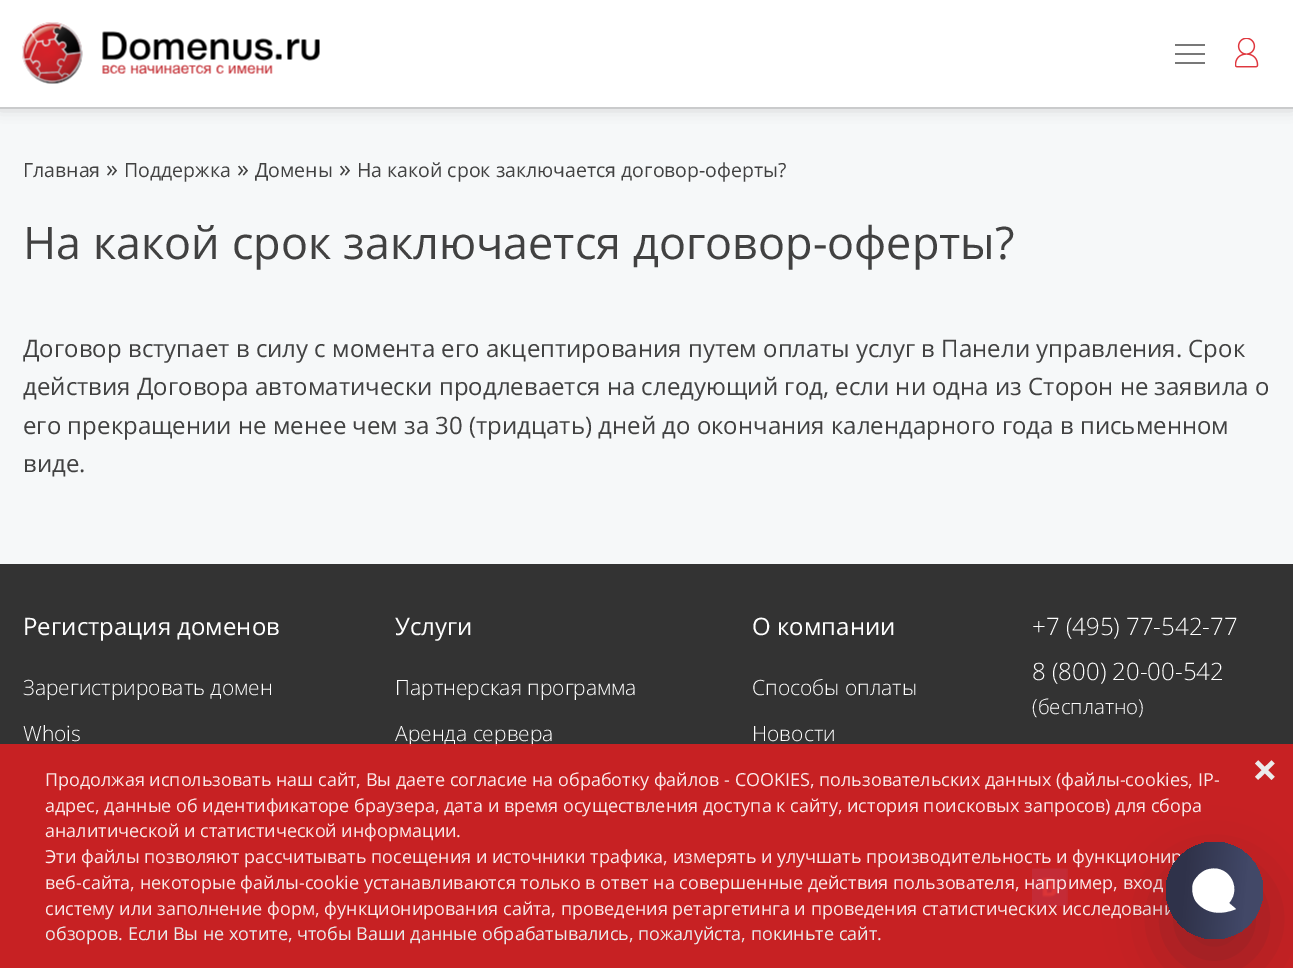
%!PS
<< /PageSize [1293 968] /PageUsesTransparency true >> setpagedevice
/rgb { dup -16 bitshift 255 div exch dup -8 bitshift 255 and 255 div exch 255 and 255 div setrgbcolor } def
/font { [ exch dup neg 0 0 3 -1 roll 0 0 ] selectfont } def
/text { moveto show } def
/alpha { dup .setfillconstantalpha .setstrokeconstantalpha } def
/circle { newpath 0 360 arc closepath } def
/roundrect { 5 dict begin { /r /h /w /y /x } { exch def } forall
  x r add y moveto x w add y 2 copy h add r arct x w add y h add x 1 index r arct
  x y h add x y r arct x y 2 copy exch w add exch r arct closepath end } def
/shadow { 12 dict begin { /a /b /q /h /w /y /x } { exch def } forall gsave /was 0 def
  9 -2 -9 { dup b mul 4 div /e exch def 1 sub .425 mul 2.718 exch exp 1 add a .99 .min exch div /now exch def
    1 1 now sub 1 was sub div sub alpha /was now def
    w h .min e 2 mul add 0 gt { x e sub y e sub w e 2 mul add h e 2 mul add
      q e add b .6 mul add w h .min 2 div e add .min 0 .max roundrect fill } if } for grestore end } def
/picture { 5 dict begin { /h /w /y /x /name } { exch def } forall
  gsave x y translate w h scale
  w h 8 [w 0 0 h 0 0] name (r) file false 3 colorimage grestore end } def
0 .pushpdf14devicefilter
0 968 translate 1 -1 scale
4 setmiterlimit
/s1 { /OpenSans-Regular 19.5 font 16#414141 rgb } def
/s2 { /OpenSans-Regular 24 font 16#414141 rgb } def
/s3 { /OpenSans-Regular 45 font 16#414141 rgb } def
/s4 { /OpenSans-Regular 24 font 16#FFFFFF rgb } def
/s5 { /OpenSans-Light 21 font 16#FFFFFF rgb } def
/s6 { /OpenSans-Light 24 font 16#FFFFFF rgb } def
/s7 { /OpenSans-Light 20.5 font 16#FFFFFF rgb } def
/s8 { /OpenSans-Regular 18 font 16#FAE9E9 rgb } def
/s9 { /OpenSans-Regular 18 font 16#EBEBEB rgb } def
/s10 { /OpenSans-Bold 45 font 16#EBEBEB rgb } def
16#F6F8F9 rgb
0 0 1293 968 rectfill
16#000000 rgb
0 0 1293 107 0 7.5 0.2 shadow
16#FFFFFF rgb
0 0 1293 107 rectfill
16#CACBCC rgb
0 107 1293 2 rectfill
(pic1.raw) 22 22 298 62 picture
16#787878 rgb
1175 44 30 2 rectfill
1175 53 30 2 rectfill
1175 62 30 2 rectfill
(pic2.raw) 1235 38 24 30 picture
s1
(Главная) 23 177 text
s2
(») 106 177 text
s1
(Поддержка) 124 177 text
s2
(») 237 177 text
s1
(Домены) 255 177 text
s2
(») 339 177 text
s1
(На какой срок заключается договор-оферты?) 357 177 text
s3
(На какой срок заключается договор-оферты?) 23 259 text
s2
(Договор вступает в силу с момента его акцептирования путем оплаты услуг в Панели управления. Срок) 23 357 text
(действия Договора автоматически продлевается на следующий год, если ни одна из Сторон не заявила о) 23 395 text
(его прекращении не менее чем за 30 \(тридцать\) дней до окончания календарного года в письменном) 23 434 text
(виде.) 23 472 text
16#333333 rgb
0 564 1293 404 rectfill
s4
(Регистрация доменов) 23 635 text
s5
(Зарегистрировать домен) 23 695 text
(Whois) 23 741 text
s4
(Услуги) 395 635 text
s5
(Партнерская программа) 395 695 text
(Аренда сервера) 395 741 text
s4
(О компании) 752 635 text
s5
(Способы оплаты) 752 695 text
(Новости) 752 741 text
s6
(+7 \(495\) 77-542-77) 1032 635 text
(8 \(800\) 20-00-542) 1032 680 text
s7
(\(бесплатно\)) 1032 714 text
(pic3.raw) 1032 868 36 38 picture
0.9 alpha
16#D71F21 rgb
0 744 1293 224 rectfill
1 alpha
s8
(Продолжая использовать наш сайт, Вы даете согласие на обработку файлов - COOKIES, пользовательских данных \(файлы-cookies, IP-) 45 786 text
(адрес, данные об идентификаторе браузера, дата и время осуществления доступа к сайту, история поисковых запросов\) для сбора) 45 812 text
(аналитической и статистической информации.) 45 837 text
(Эти файлы позволяют рассчитывать посещения и источники трафика, измерять и улучшать производительность и функционир) 45 863 text
(веб-сайта, некоторые файлы-cookie устанавливаются только в ответ на совершенные действия пользователя, например, вход) 45 889 text
(систему или заполнение форм, функционирования сайта, проведения ретаргетинга и проведения статистических исследовани) 45 915 text
s9
(обзоров. Если Вы не хотите, чтобы Ваши данные обрабатывались, пожалуйста, покиньте сайт.) 45 940 text
s10
(×) 1252 786 text
16#22242B rgb
1166 870 97 98 48.5 28.5 0.3 shadow
gsave 1214.5 890.5 48.5 circle clip newpath
<< /ShadingType 2 /ColorSpace /DeviceRGB /Coords [1162 886 1267 895] /Extend [true true] /Function << /FunctionType 3 /Domain [0 1] /Functions [<< /FunctionType 2 /Domain [0 1] /C0 [0.184 0.196 0.29] /C1 [0.184 0.196 0.29] /N 1 >> << /FunctionType 2 /Domain [0 1] /C0 [0.184 0.196 0.29] /C1 [0.259 0.282 0.404] /N 1 >> << /FunctionType 2 /Domain [0 1] /C0 [0.259 0.282 0.404] /C1 [0.259 0.282 0.404] /N 1 >>] /Bounds [0.2 0.8] /Encode [0 1 0 1 0 1] >> >> shfill grestore
16#FFFFFF rgb
1195 900 moveto 1195 900 1207 921 1236 909 curveto 1229 903 lineto 1243 887 1227 862 1206 870 curveto 1201 872 1197 876 1194 881 curveto 1191 887 1192 894 1195 900 curveto closepath eofill
.poppdf14devicefilter showpage
